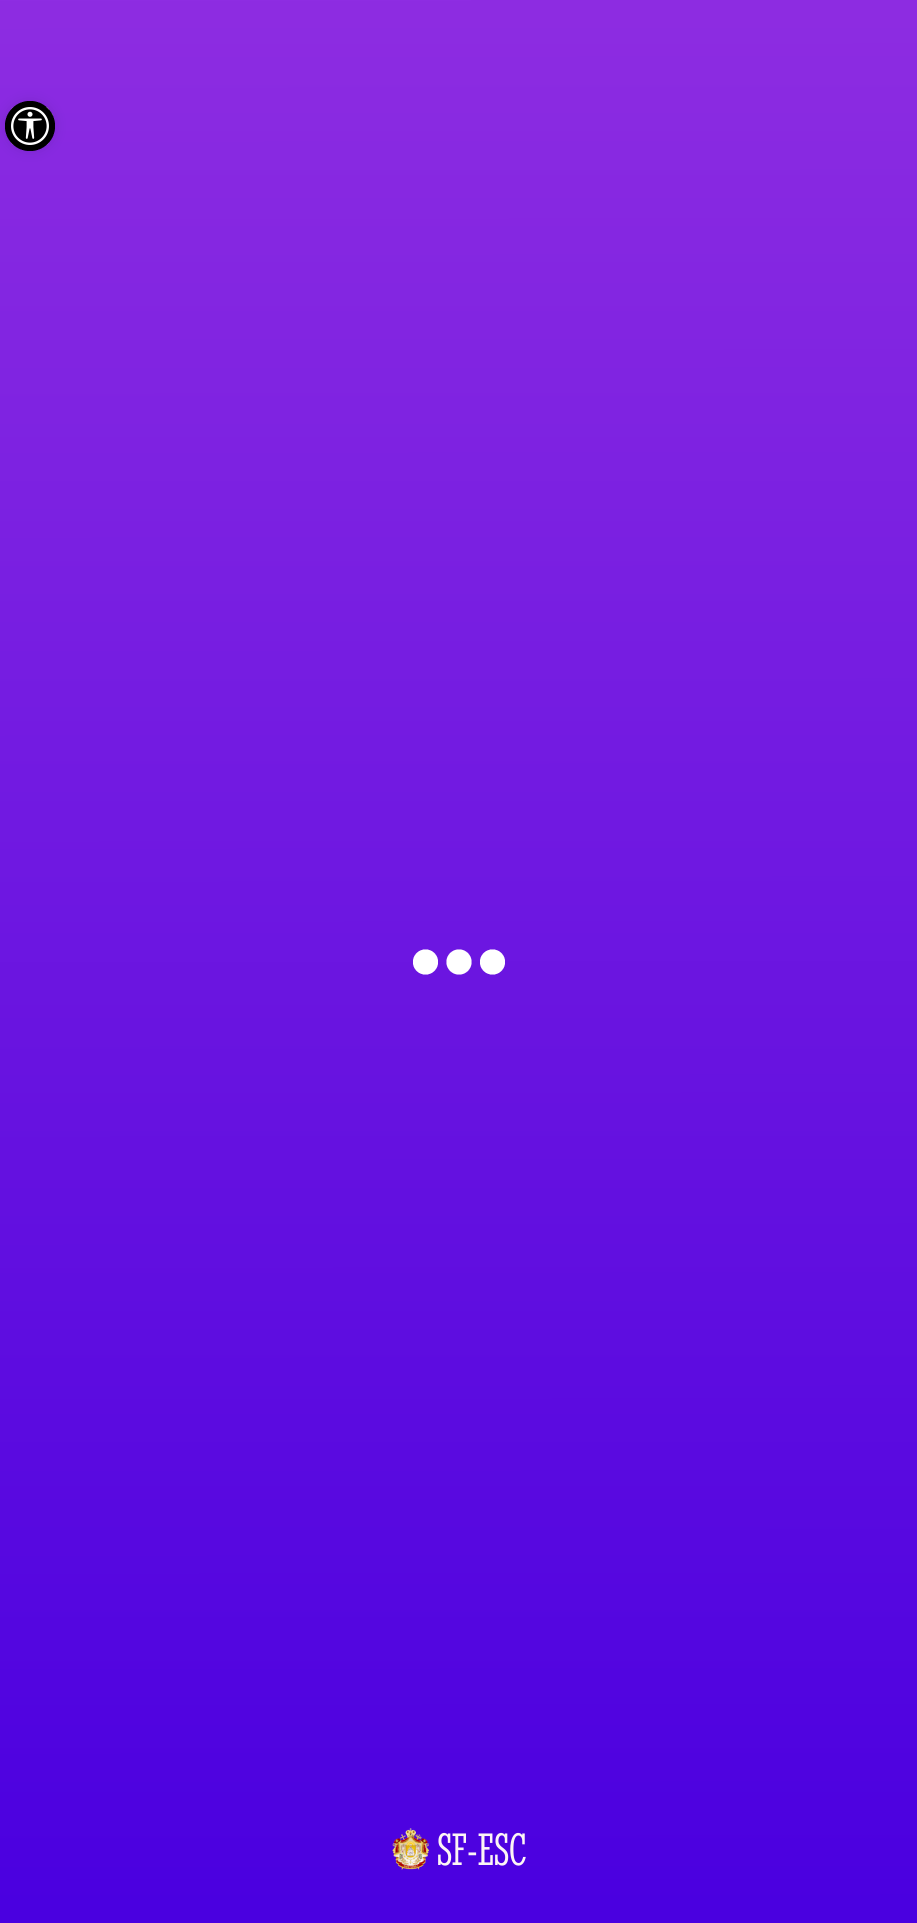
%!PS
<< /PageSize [917 1923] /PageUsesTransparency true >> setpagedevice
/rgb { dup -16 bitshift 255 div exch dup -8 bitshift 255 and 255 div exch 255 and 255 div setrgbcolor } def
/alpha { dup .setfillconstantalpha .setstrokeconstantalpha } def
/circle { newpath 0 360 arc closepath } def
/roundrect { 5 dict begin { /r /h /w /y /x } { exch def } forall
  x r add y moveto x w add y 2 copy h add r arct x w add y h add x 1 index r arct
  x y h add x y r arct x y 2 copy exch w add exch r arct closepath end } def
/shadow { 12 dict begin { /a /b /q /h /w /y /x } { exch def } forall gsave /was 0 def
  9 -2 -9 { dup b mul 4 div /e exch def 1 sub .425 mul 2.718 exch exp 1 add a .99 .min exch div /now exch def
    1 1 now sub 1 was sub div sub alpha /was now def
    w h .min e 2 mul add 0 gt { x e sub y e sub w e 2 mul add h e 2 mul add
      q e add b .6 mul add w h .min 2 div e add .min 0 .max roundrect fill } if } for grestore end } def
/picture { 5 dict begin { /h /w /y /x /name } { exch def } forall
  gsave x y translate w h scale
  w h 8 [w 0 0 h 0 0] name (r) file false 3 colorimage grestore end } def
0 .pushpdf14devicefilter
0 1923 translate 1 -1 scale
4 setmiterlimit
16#FFFFFF rgb
0 0 917 1923 rectfill
gsave 0 0 moveto 917 0 lineto 917 1923 lineto 0 1923 lineto closepath clip newpath
<< /ShadingType 2 /ColorSpace /DeviceRGB /Coords [458 0 459 1923] /Extend [true true] /Function << /FunctionType 2 /Domain [0 1] /C0 [0.557 0.176 0.886] /C1 [0.29 0 0.878] /N 1 >> >> shfill grestore
425.5 962 12.5 circle fill
459 962 12.5 circle fill
492.5 962 12.5 circle fill
(pic1.raw) 392 1828 134 42 picture
16#000000 rgb
5 101 50 50 25 5 0.1 shadow
(pic3.raw) 51 113 2 4 picture
30 126 25 circle fill
(pic2.raw) 11 107 38 38 picture
.poppdf14devicefilter showpage
